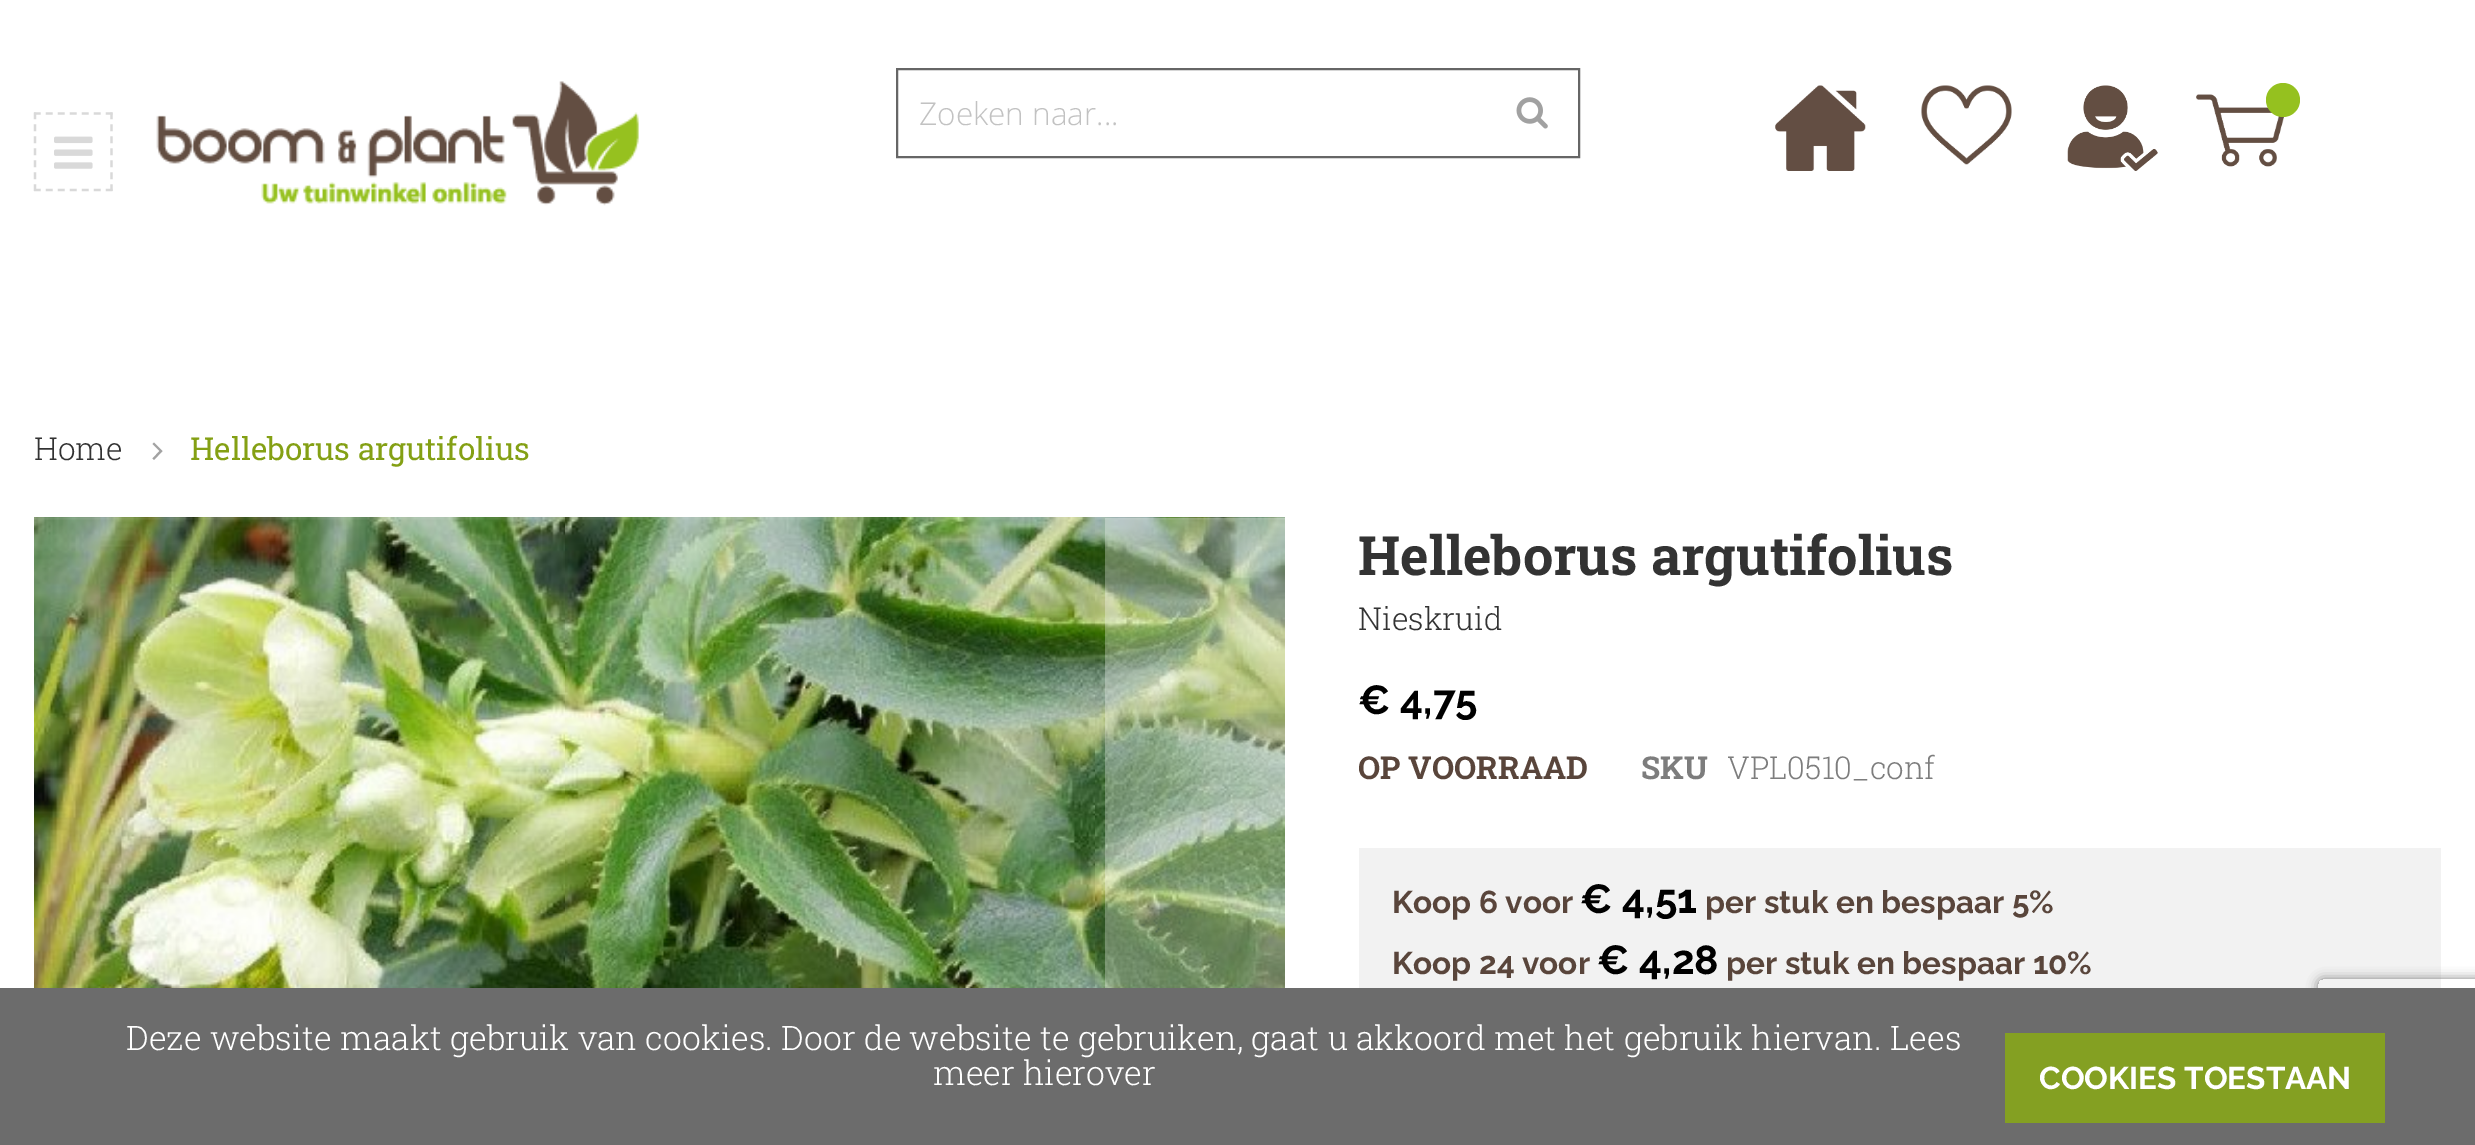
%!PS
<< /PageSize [2475 1145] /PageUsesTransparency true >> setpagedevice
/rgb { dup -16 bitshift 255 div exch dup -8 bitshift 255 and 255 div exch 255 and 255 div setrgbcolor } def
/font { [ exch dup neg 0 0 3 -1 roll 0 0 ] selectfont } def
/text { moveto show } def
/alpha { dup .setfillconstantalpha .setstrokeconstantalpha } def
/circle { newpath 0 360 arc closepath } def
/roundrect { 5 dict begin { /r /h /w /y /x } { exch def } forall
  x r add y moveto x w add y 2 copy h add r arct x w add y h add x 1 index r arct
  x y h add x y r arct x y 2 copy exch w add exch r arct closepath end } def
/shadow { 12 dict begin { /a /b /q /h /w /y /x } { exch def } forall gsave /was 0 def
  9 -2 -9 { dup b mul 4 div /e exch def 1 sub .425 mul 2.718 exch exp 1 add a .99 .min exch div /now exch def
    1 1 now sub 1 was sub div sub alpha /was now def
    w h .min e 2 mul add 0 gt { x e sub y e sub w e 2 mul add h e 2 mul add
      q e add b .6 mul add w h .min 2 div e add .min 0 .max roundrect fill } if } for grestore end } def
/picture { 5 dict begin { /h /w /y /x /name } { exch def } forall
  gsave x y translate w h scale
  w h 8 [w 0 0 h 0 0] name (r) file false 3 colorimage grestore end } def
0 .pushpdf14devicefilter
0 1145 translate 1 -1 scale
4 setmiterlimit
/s1 { /OpenSans-Light 31.5 font 16#C2C2C2 rgb } def
/s2 { /RobotoSlab-Light 31.5 font 16#333333 rgb } def
/s3 { /RobotoSlab-Regular 31.5 font 16#84A014 rgb } def
/s4 { /RobotoSlab-Bold 54 font 16#333333 rgb } def
/s5 { /Raleway-Bold 40.5 font 16#000000 rgb } def
/s6 { /RobotoSlab-Bold 31.5 font 16#59453B rgb } def
/s7 { /RobotoSlab-Bold 31.5 font 16#7D7D7D rgb } def
/s8 { /RobotoSlab-Light 31.5 font 16#7D7D7D rgb } def
/s9 { /Raleway-Bold 31.5 font 16#59453B rgb } def
/s10 { /RobotoSlab-Light 33.75 font 16#FFFFFF rgb } def
/s11 { /Raleway-Bold 31.5 font 16#FFFFFF rgb } def
16#FFFFFF rgb
0 0 2475 1145 rectfill
16#D9D9D9 rgb
2.2 setlinewidth
[6.75 5.24] 0 setdash
34 113.5 moveto 112.5 113.5 lineto stroke
111.5 112.5 moveto 111.5 191 lineto stroke
34 190 moveto 112.5 190 lineto stroke
35 112.5 moveto 35 191 lineto stroke
(pic1.raw) 54 136 39 33 picture
(pic2.raw) 156 81 483 125 picture
16#666666 rgb
2 setlinewidth
[] 0 setdash
897 69 682 88 rectstroke
s1
(Zoeken naar...) 919 125 text
(pic3.raw) 1516 97 32 32 picture
(pic4.raw) 1775 85 91 86 picture
(pic5.raw) 1921 85 91 80 picture
(pic6.raw) 2067 85 91 86 picture
(pic7.raw) 2196 94 89 73 picture
16#95C11F rgb
2283 100 17 circle fill
s2
(Home) 34 460 text
16#A3A3A3 rgb
162.5 451 moveto 154 442.5 lineto 152.5 444 lineto 159.5 451 lineto 152.5 458.5 lineto 154 460 lineto closepath fill
s3
(Helleborus argutifolius) 190 460 text
(pic8.raw) 34 517 1251 471 picture
0.03 alpha
16#FFFFFF rgb
34 518 180 470 rectfill
0.3 alpha
1105 518 180 470 rectfill
1 alpha
s4
(Helleborus argutifolius) 1358 575 text
s2
(Nieskruid) 1358 630 text
s5
(€ 4,75) 1358 714 text
s6
(OP VOORRAAD) 1358 779 text
s7
(SKU) 1641 779 text
s8
(VPL0510_conf) 1727 779 text
16#F2F2F2 rgb
1359 848 1082 140 rectfill
s9
(Koop 6 voor) 1392 913 text
s5
(€ 4,51) 1580 913 text
s9
(per stuk en bespaar 5%) 1705 913 text
(Koop 24 voor) 1392 974 text
s5
(€ 4,28) 1597 974 text
s9
(per stuk en bespaar 10%) 1726 974 text
gsave
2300 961 moveto 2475 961 lineto 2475 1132 lineto 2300 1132 lineto closepath 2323 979 moveto 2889 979 lineto 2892 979 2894 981 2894 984 curveto 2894 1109 lineto 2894 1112 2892 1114 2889 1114 curveto 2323 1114 lineto 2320 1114 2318 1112 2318 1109 curveto 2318 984 lineto 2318 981 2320 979 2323 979 curveto closepath eoclip newpath
16#808080 rgb
2318 979 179 135 5 5.5 1 shadow
grestore
16#6C6C6C rgb
0 988 2475 157 rectfill
s10
(Deze website maakt gebruik van cookies. Door de website te gebruiken, gaat u akkoord met het gebruik hiervan. Lees) 126 1050 text
(meer hierover) 933 1085 text
16#84A022 rgb
2005 1033 380 90 rectfill
s11
(COOKIES TOESTAAN) 2039 1089 text
.poppdf14devicefilter showpage
